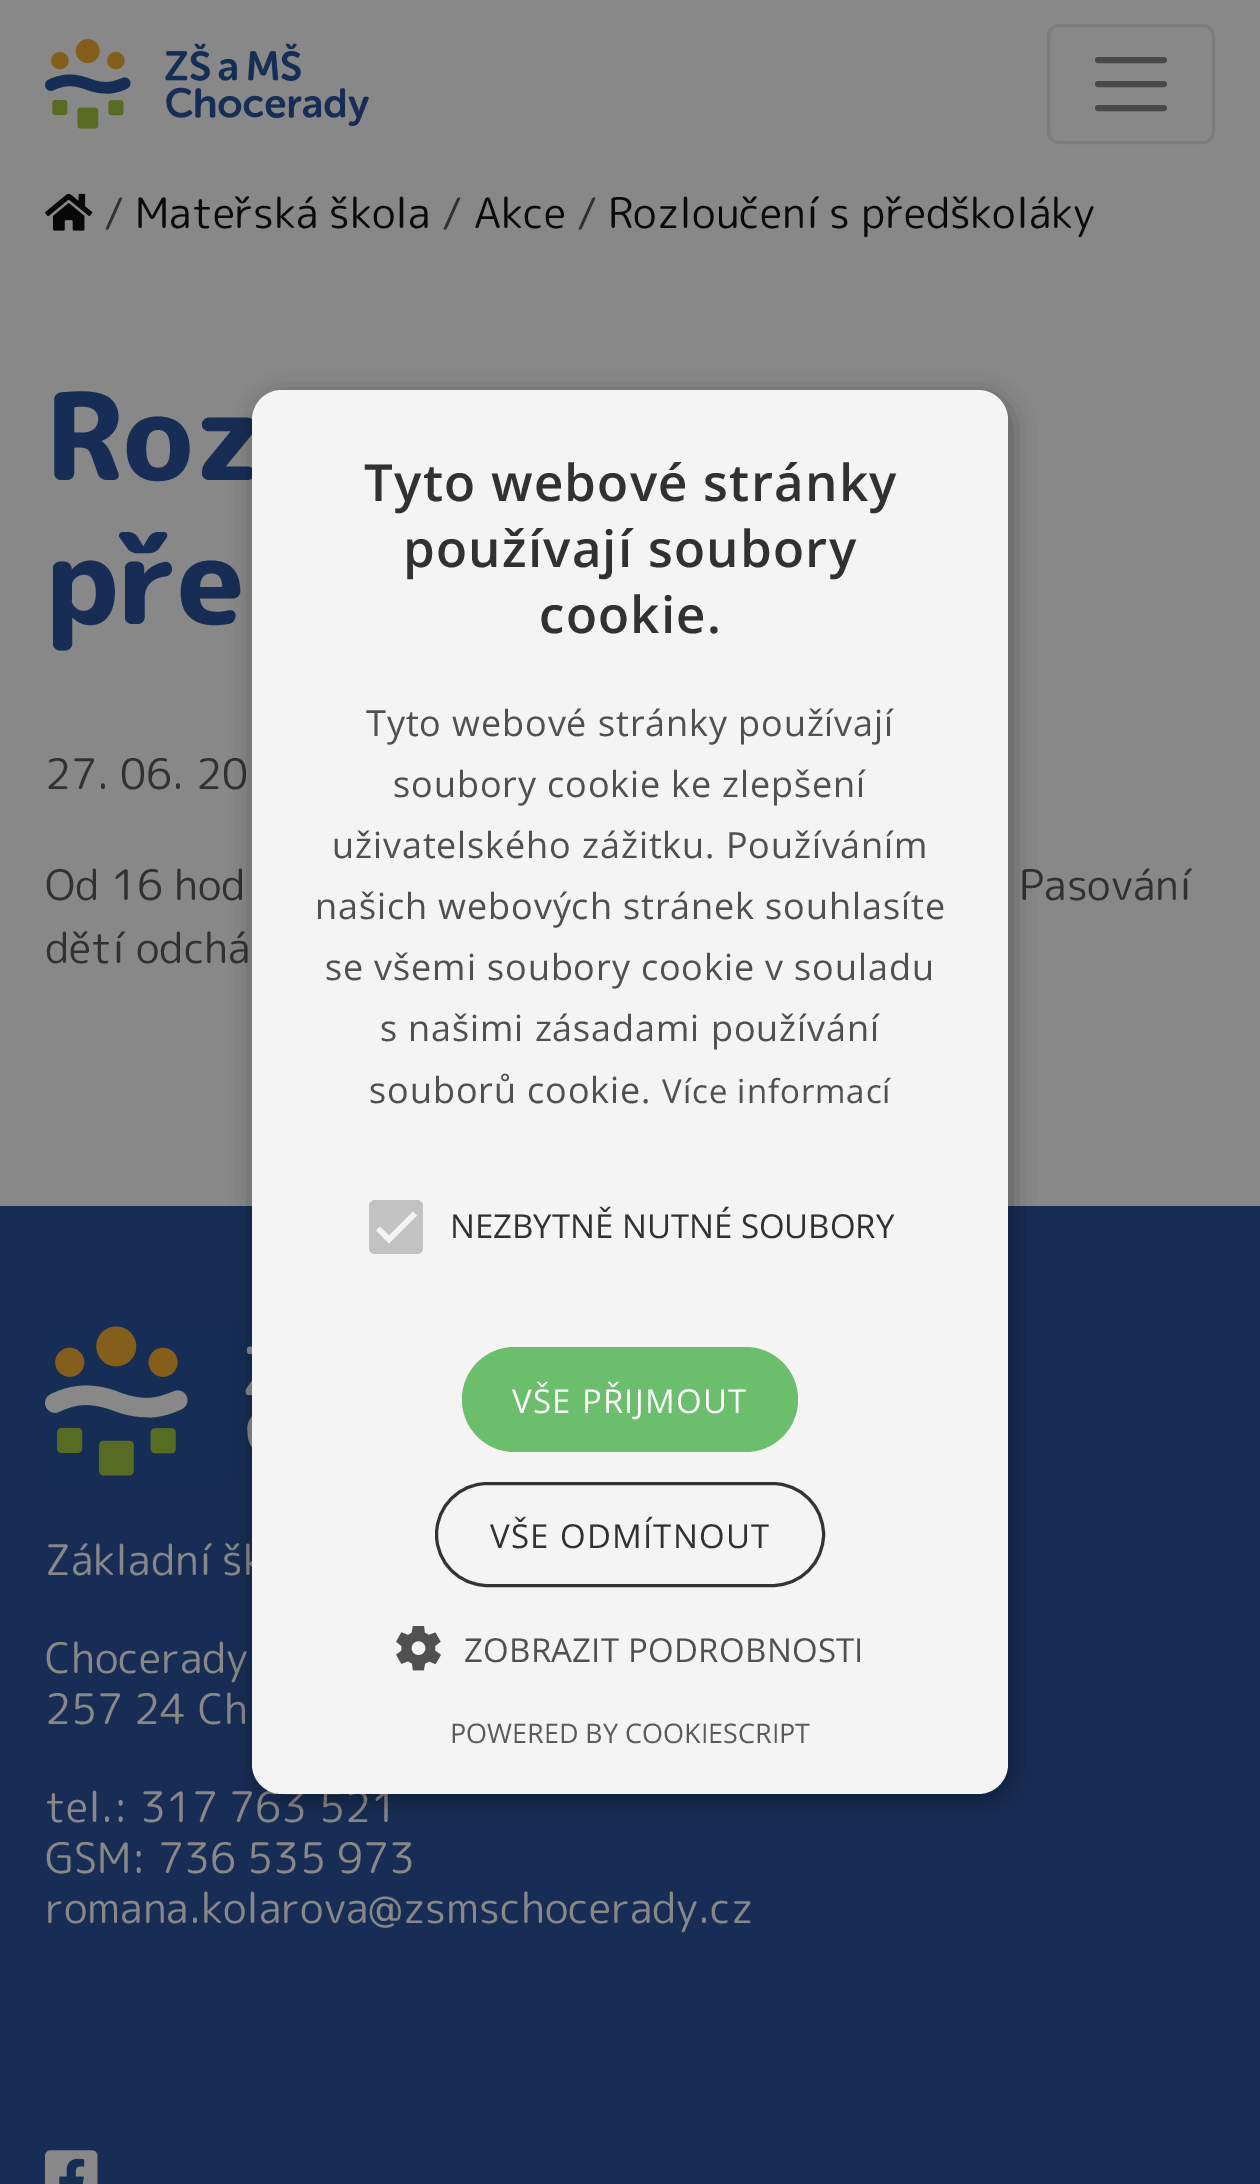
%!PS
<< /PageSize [1260 2184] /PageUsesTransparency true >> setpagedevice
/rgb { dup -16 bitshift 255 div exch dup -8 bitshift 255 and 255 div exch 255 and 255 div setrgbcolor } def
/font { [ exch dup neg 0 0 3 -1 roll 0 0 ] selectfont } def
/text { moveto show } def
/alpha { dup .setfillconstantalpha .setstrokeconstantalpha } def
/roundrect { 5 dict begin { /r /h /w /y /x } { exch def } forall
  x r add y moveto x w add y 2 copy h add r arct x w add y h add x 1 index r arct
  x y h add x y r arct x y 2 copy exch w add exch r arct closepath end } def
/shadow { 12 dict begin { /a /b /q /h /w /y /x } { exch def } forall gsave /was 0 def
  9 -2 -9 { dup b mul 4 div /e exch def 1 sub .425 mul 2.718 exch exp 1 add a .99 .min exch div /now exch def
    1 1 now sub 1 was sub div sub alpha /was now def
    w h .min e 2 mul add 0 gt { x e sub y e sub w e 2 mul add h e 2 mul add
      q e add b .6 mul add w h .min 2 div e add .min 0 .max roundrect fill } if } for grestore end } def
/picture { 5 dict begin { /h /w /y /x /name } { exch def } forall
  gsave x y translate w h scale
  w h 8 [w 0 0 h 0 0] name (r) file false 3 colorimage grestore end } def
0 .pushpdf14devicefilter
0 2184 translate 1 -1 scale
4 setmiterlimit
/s1 { /RoundedMplus1c-Regular 42 font 16#313131 rgb } def
/s2 { /RoundedMplus1c-Regular 42 font 16#090909 rgb } def
/s3 { /RoundedMplus1c-ExtraBold 120 font 16#172D55 rgb } def
/s4 { /RoundedMplus1c-Regular 42 font 16#888888 rgb } def
/s5 { /OpenSans-Regular 33 font 16#313131 rgb } def
/s6 { /OpenSans-Regular 27 font 16#5A5A5A rgb } def
16#888888 rgb
0 0 1260 2184 rectfill
(pic1.raw) 45 39 324 90 picture
16#7C7C7C rgb
3 setlinewidth
1048.5 25.5 165 117 10.5 roundrect stroke
16#494949 rgb
6 setlinewidth
1 setlinecap
1098 60 moveto 1164 60 lineto 1098 84 moveto 1164 84 lineto 1098 108 moveto 1164 108 lineto stroke
(pic2.raw) 45 193 48 38 picture
s1
(/) 104 228 text
s2
(Mateřská škola) 135 228 text
s1
(/) 442 228 text
s2
(Akce) 474 228 text
s1
(/) 577 228 text
s2
(Rozloučení s předškoláky) 608 228 text
s3
(Roz) 45 480 text
(pře) 45 624 text
s1
(27. 06. 20) 45 789 text
(Od 16 hod) 45 900 text
(Pasování) 1019 900 text
(dětí odchá) 45 963 text
16#172D55 rgb
0 1206 1260 978 rectfill
(pic3.raw) 45 1326 207 150 picture
s4
(Základní šk) 45 1575 text
(Chocerady) 45 1673 text
(257 24 Ch) 45 1724 text
(tel.: 317 763 521) 45 1822 text
(GSM: 736 535 973) 45 1873 text
(romana.kolarova@zsmschocerady.cz) 45 1923 text
16#000000 rgb
255 396 756 1404 30 12 0.35 shadow
16#F4F4F4 rgb
252 390 756 1404 30 roundrect fill
/OpenSans-SemiBold 51 font
16#313131 rgb
364 501 moveto 1.25 0 (Tyto webové stránky) ashow
403 567 moveto 1.25 0 (používají soubory) ashow
539 633 moveto 1.25 0 (cookie.) ashow
/OpenSans-Regular 36 font
16#505050 rgb
366 736 moveto 0.9 0 (Tyto webové stránky používají) ashow
393 797 moveto 0.9 0 (soubory cookie ke zlepšení) ashow
332 858 moveto 0.9 0 (uživatelského zážitku. Používáním) ashow
315 919 moveto 0.9 0 (našich webových stránek souhlasíte) ashow
325 980 moveto 0.9 0 (se všemi soubory cookie v souladu) ashow
380 1041 moveto 0.9 0 (s našimi zásadami používání) ashow
369 1103 moveto 0.9 0 (souborů cookie.) ashow
/OpenSans-Regular 33 font
662 1103 moveto 0.9 0 (Více informací) ashow
16#C2C2C2 rgb
369 1200 54 54 6 roundrect fill
16#F4F4F4 rgb
5.5 setlinewidth
0 setlinecap
378 1228.5 moveto 389 1239.5 lineto 415 1213.5 lineto stroke
s5
(NEZBYTNĚ NUTNÉ SOUBORY) 450 1238 text
16#6BBE6B rgb
462 1347 336 105 52.5 roundrect fill
16#FFFFFF rgb
512 1413 moveto 1.25 0 (VŠE PŘIJMOUT) ashow
16#333333 rgb
3 setlinewidth
436.5 1483.5 387 102 51 roundrect stroke
16#313131 rgb
490 1548 moveto 1.25 0 (VŠE ODMÍTNOUT) ashow
(pic4.raw) 396 1626 45 45 picture
16#505050 rgb
464 1662 moveto 0.25 0 (ZOBRAZIT PODROBNOSTI) ashow
s6
(POWERED BY COOKIESCRIPT) 450 1743 text
(pic5.raw) 45 2150 53 34 picture
.poppdf14devicefilter showpage
